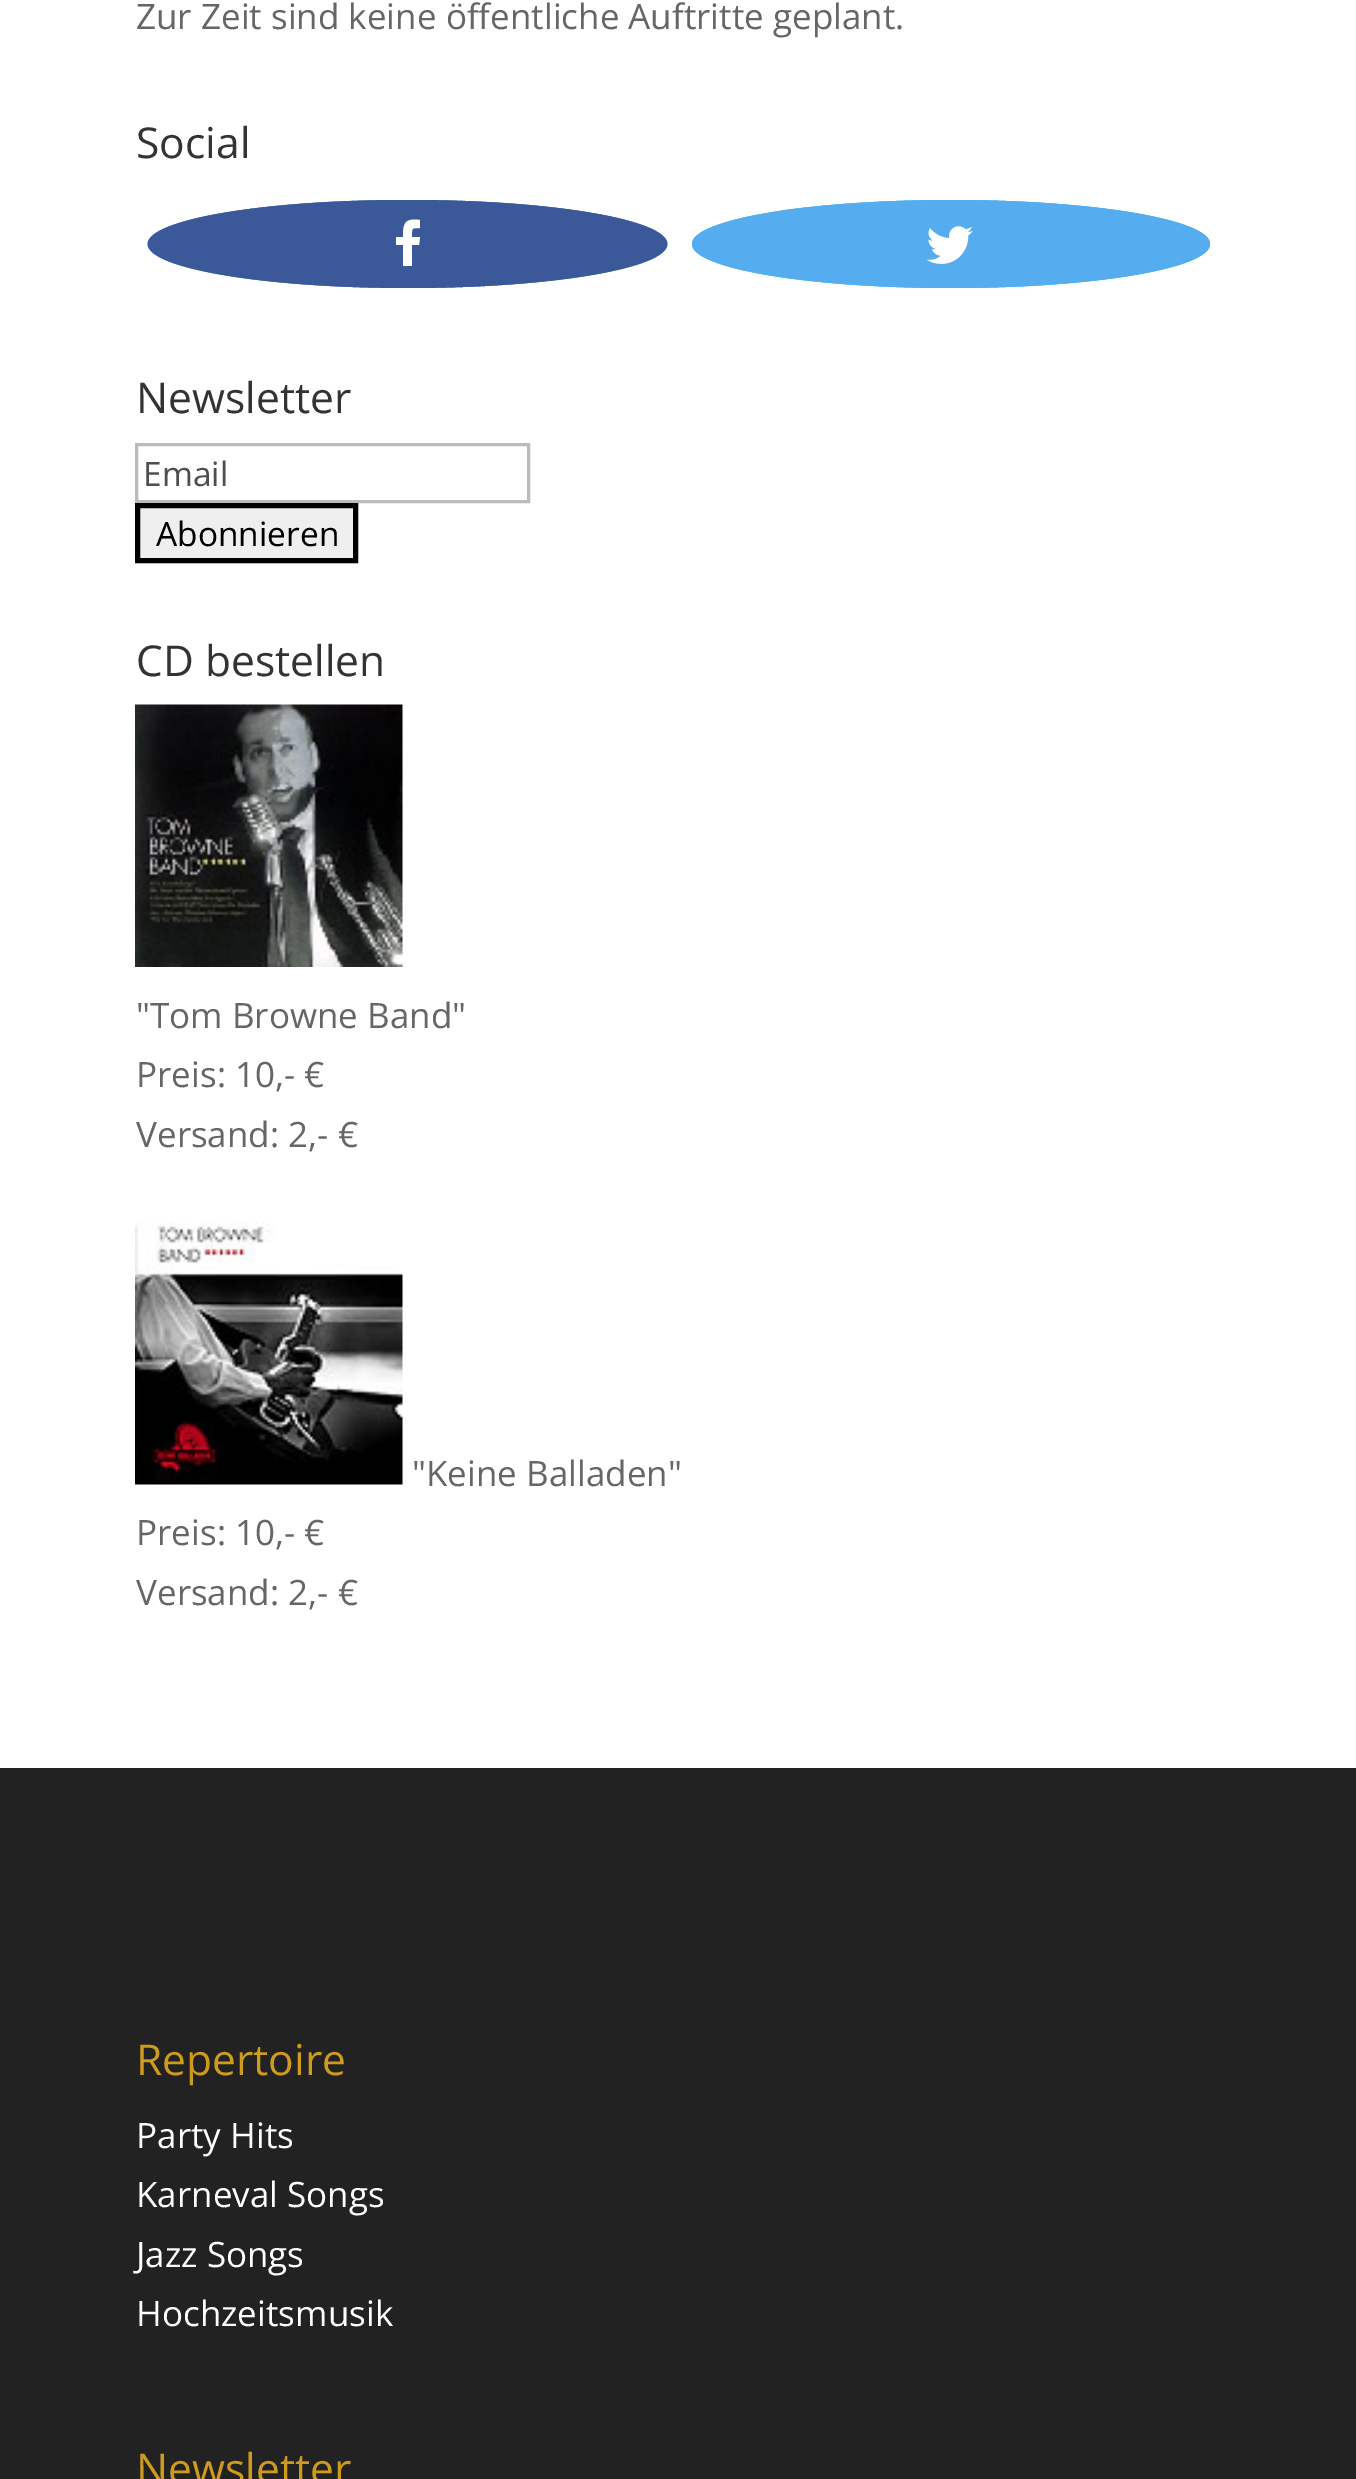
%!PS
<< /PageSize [1356 2479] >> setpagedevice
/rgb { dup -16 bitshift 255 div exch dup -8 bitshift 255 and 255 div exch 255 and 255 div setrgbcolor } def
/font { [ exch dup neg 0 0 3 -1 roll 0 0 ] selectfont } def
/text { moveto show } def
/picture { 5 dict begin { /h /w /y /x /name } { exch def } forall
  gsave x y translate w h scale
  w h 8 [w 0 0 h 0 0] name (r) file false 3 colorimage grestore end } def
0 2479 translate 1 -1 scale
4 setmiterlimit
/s1 { /OpenSans-Regular 35 font 16#666666 rgb } def
/s2 { /OpenSans-Regular 42.5 font 16#333333 rgb } def
/s3 { /OpenSans-Regular 33.5 font 16#4E4E4E rgb } def
/s4 { /OpenSans-Regular 33.5 font 16#000000 rgb } def
/s5 { /OpenSans-Regular 42.5 font 16#CE9B1D rgb } def
/s6 { /OpenSans-Regular 35 font 16#FFFFFF rgb } def
16#FFFFFF rgb
0 0 1356 2479 rectfill
s1
(Zur Zeit sind keine öffentliche Auftritte geplant.) 136 29 text
s2
(Social) 136 158 text
16#4273C8 rgb
407.5 200 moveto 551 200 667.5 219.5 667.5 244 curveto 667.5 268.5 551 288 407.5 288 curveto 264 288 147.5 268.5 147.5 244 curveto 147.5 219.5 264 200 407.5 200 curveto closepath fill
16#3B5998 rgb
408 200 moveto 404 200 lineto 262 200 148 220 148 244 curveto 148 268 264 288 408 288 curveto 551 288 667 268 667 244 curveto 667 220 553 200 411 200 curveto closepath fill
16#FFFFFF rgb
420 220 moveto 420 228 lineto 411 228 412 228 412 237 curveto 420 237 lineto 419 245 lineto 412 245 lineto 412 266 lineto 403 266 lineto 403 245 lineto 396 245 lineto 396 237 lineto 403 237 lineto 403 223 405 218 420 220 curveto closepath fill
16#32BBF5 rgb
951 200 moveto 1094 200 1210 219.5 1210 244 curveto 1210 268.5 1094 288 951 288 curveto 808 288 692 268.5 692 244 curveto 692 219.5 808 200 951 200 curveto closepath fill
16#55ACEE rgb
1210 244 moveto 1210 220 1094 200 951 200 curveto 888 200 830 204 785 210 curveto 751 216 lineto 715 224 692 233 692 244 curveto 692 268 808 288 951 288 curveto 1094 288 1210 268 1210 244 curveto closepath fill
(pic1.raw) 926 226 47 38 picture
s2
(Newsletter) 136 413 text
16#BBBBBB rgb
3 setlinewidth
136.5 444.5 392 57 rectstroke
s3
(Email) 143 486 text
16#EFEFEF rgb
137.5 505.5 moveto 355.5 505.5 lineto 355.5 560.5 lineto 137.5 560.5 lineto closepath gsave fill grestore
16#000000 rgb
5 setlinewidth
stroke
(Abonnieren) 156 546 text
s2
(CD bestellen) 136 676 text
(pic2.raw) 135 704 268 263 picture
s1
("Tom Browne Band") 136 1028 text
(Preis: 10,- €) 136 1087 text
(Versand: 2,- €) 136 1147 text
(pic3.raw) 135 1222 268 263 picture
("Keine Balladen") 412 1486 text
(Preis: 10,- €) 136 1545 text
(Versand: 2,- €) 136 1605 text
16#222222 rgb
0 1768 1356 711 rectfill
s5
(Repertoire) 136 2075 text
s6
(Party Hits) 136 2148 text
(Karneval Songs) 136 2207 text
(Jazz Songs) 136 2267 text
(Hochzeitsmusik) 136 2326 text
s5
(Newsletter) 136 2484 text
showpage
